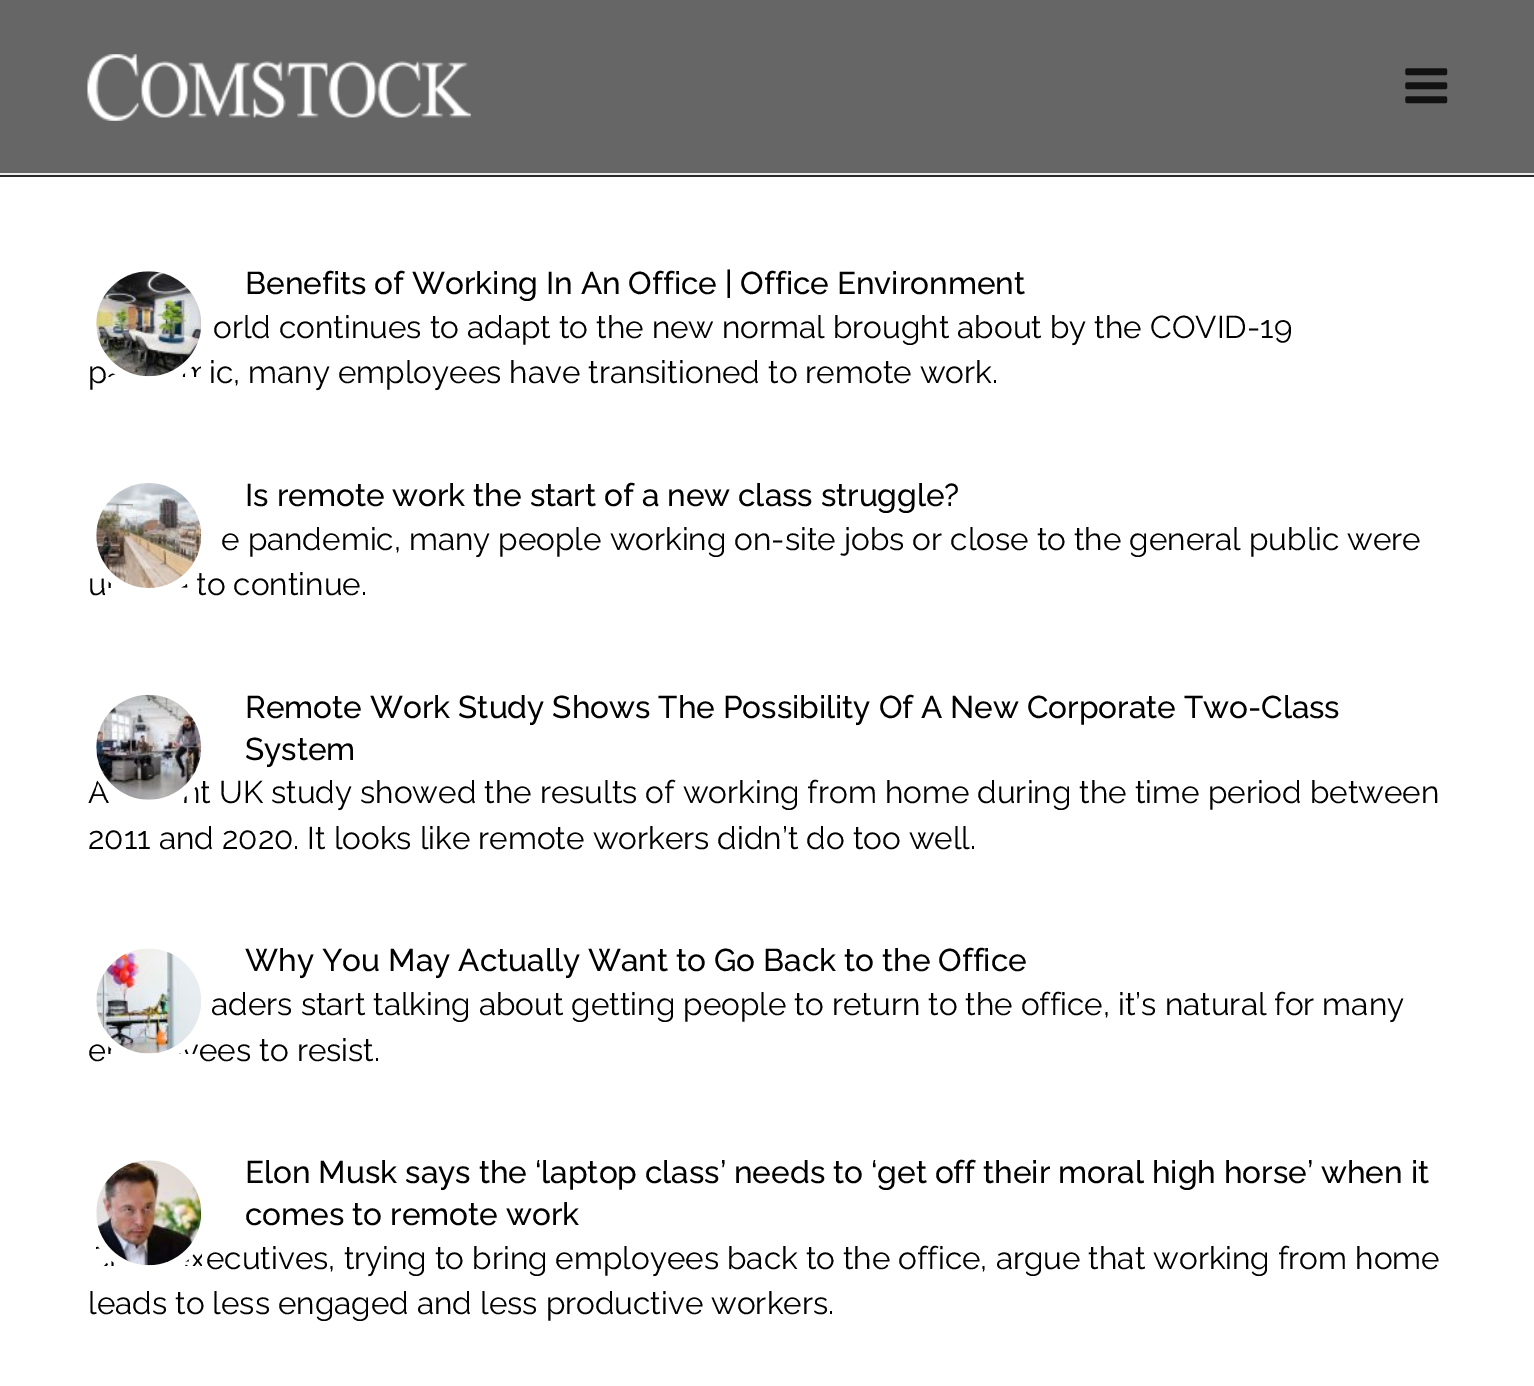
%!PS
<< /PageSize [1534 1386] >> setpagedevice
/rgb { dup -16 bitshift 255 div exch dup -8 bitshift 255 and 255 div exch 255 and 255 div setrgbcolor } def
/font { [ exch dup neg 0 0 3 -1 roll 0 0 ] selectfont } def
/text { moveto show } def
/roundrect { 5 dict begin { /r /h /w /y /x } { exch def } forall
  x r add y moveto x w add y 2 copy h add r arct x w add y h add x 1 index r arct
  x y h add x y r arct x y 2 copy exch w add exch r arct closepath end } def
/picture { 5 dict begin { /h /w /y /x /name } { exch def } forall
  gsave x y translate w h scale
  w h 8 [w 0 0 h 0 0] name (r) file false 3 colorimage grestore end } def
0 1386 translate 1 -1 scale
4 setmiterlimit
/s1 { /Raleway-Regular 31.5 font 16#000000 rgb } def
/s2 { /Raleway-Medium 31.5 font 16#000000 rgb } def
16#FFFFFF rgb
0 0 1534 1386 rectfill
16#666666 rgb
0 0 1534 173 rectfill
16#292929 rgb
0 175 1534 2 rectfill
16#EBEBEB rgb
0 173 1534 2 rectfill
(pic1.raw) 87 54 384 67 picture
(pic2.raw) 1405 68 43 36 picture
s1
(p) 88 383 text
(pic3.raw) 96 271 105 106 picture
s2
(Benefits of Working In An Office | Office Environment) 245 294 text
s1
(orld continues to adapt to the new normal brought about by the COVID-19) 213 338 text
(ic, many employees have transitioned to remote work.) 209 383 text
(u) 88 595 text
(to continue.) 196 595 text
(pic4.raw) 96 483 106 105 picture
s2
(Is remote work the start of a new class struggle?) 245 506 text
s1
(e pandemic, many people working on-site jobs or close to the general public were) 221 550 text
(A) 88 803 text
(nt UK study showed the results of working from home during the time period between) 182 803 text
16#FFFFFF rgb
88 686 122 123 61 roundrect fill
(pic5.raw) 96 694 106 106 picture
s2
(Remote Work Study Shows The Possibility Of A New Corporate Two-Class) 245 718 text
(System) 245 760 text
s1
(2011 and 2020. It looks like remote workers didn’t do too well.) 88 849 text
(e) 88 1061 text
(ees to resist.) 199 1061 text
(pic6.raw) 96 948 105 106 picture
s2
(Why You May Actually Want to Go Back to the Office) 245 971 text
s1
(aders start talking about getting people to return to the office, it’s natural for many) 211 1015 text
(pic7.raw) 96 1160 106 106 picture
s2
(Elon Musk says the ‘laptop class’ needs to ‘get off their moral high horse’ when it) 245 1183 text
(comes to remote work) 245 1225 text
s1
(ecutives, trying to bring employees back to the office, argue that working from home) 206 1269 text
(leads to less engaged and less productive workers.) 88 1314 text
showpage
